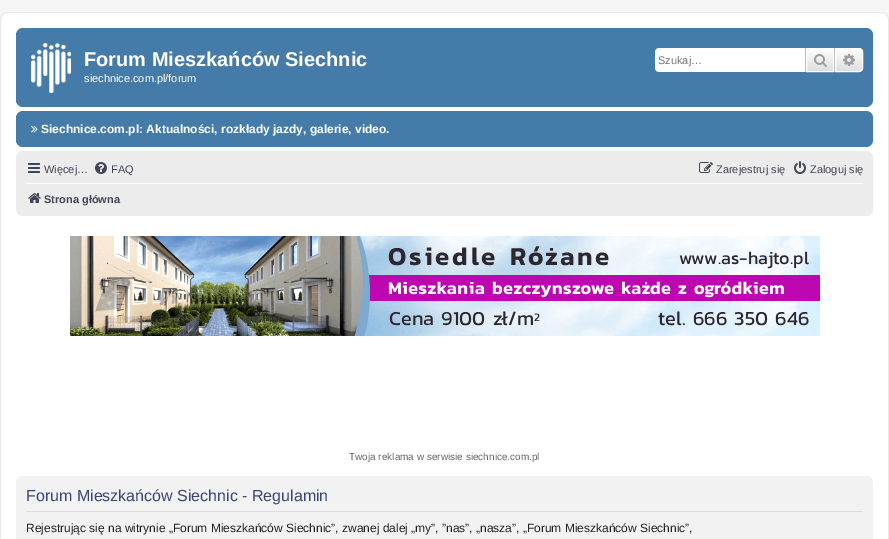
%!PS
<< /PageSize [889 539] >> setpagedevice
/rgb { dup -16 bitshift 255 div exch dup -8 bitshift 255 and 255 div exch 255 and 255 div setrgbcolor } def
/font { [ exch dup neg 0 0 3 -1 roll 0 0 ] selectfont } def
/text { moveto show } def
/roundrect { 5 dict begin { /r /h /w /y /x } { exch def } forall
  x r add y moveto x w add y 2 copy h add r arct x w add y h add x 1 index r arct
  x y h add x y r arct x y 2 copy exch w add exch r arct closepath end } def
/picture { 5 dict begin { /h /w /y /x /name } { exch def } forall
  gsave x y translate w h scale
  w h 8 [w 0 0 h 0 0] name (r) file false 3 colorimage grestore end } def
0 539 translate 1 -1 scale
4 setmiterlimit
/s1 { /LiberationSans-Bold 20 font 16#FFFFFF rgb } def
/s2 { /LiberationSans-Regular 11 font 16#FFFFFF rgb } def
/s3 { /LiberationSans-Regular 11 font 16#757575 rgb } def
/s4 { /LiberationSans-Bold 12 font 16#FFFFFF rgb } def
/s5 { /LiberationSans-Regular 11 font 16#414558 rgb } def
/s6 { /LiberationSans-Bold 11 font 16#414558 rgb } def
/s7 { /LiberationSans-Regular 10 font 16#636363 rgb } def
/s8 { /LiberationSans-Regular 16 font 16#3A4478 rgb } def
/s9 { /LiberationSans-Regular 12 font 16#212121 rgb } def
16#F5F5F5 rgb
0 0 889 539 rectfill
16#FFFFFF rgb
0.5 12.5 888 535 7.5 roundrect gsave fill grestore
16#E6E9ED rgb
stroke
16#457BA9 rgb
16 28 857 79 7 roundrect fill
(pic1.raw) 31 43 40 50 picture
s1
(Forum Mieszkańców Siechnic) 84 66 text
s2
(siechnice.com.pl/forum) 84 82 text
659 48 moveto 805 48 lineto 805 72 lineto 659 72 lineto 657 72 655 70 655 68 curveto 655 52 lineto 655 50 657 48 659 48 curveto closepath fill
s3
(Szukaj…) 658 64 text
gsave 807 49 moveto 833 49 lineto 833 71 lineto 807 71 lineto closepath clip newpath
<< /ShadingType 2 /ColorSpace /DeviceRGB /Coords [820 48 820 72] /Extend [true true] /Function << /FunctionType 2 /Domain [0 1] /C0 [1 1 1] /C1 [0.871 0.871 0.871] /N 1 >> >> shfill grestore
16#FFFFFF rgb
806.5 48.5 27 23 rectstroke
16#BDBDBD rgb
834 48 1 24 rectfill
805 48 1 24 rectfill
(pic2.raw) 814 54 13 13 picture
gsave 835.5 48.5 moveto 859 48.5 lineto 861 48.5 862.5 50 862.5 52 curveto 862.5 68 lineto 862.5 70 861 71.5 859 71.5 curveto 835.5 71.5 lineto closepath clip newpath
<< /ShadingType 2 /ColorSpace /DeviceRGB /Coords [849 48 849 72] /Extend [true true] /Function << /FunctionType 2 /Domain [0 1] /C0 [1 1 1] /C1 [0.871 0.871 0.871] /N 1 >> >> shfill grestore
16#FFFFFF rgb
835.5 48.5 moveto 859 48.5 lineto 861 48.5 862.5 50 862.5 52 curveto 862.5 68 lineto 862.5 70 861 71.5 859 71.5 curveto 835.5 71.5 lineto closepath stroke
(pic3.raw) 843 54 12 12 picture
16#457BA9 rgb
16 111 857 36 7 roundrect fill
(pic4.raw) 31 125 7 8 picture
s4
(Siechnice.com.pl: Aktualności, rozkłady jazdy, galerie, video.) 41 133 text
16#ECECEC rgb
16 151 857 65 7 roundrect fill
(pic5.raw) 28 163 12 10 picture
s5
(Więcej…) 44 173 text
(pic6.raw) 95 162 12 12 picture
(FAQ) 111 173 text
(pic7.raw) 699 162 14 11 picture
(Zarejestruj się) 716 173 text
(pic8.raw) 794 161 12 13 picture
(Zaloguj się) 810 173 text
16#FFFFFF rgb
26 183 837 1 rectfill
(pic9.raw) 28 193 13 10 picture
s6
(Strona główna) 44 203 text
(pic10.raw) 70 236 750 100 picture
s7
(Twoja reklama w serwisie siechnice.com.pl) 349 460 text
16#F2F2F2 rgb
16 476 857 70 7 roundrect fill
16#DEDEDE rgb
26 511 837 1 rectfill
s8
(Forum Mieszkańców Siechnic - Regulamin) 26 501 text
s9
(Rejestrując się na witrynie „Forum Mieszkańców Siechnic”, zwanej dalej „my”, ”nas”, „nasza”, „Forum Mieszkańców Siechnic”,) 26 532 text
showpage
